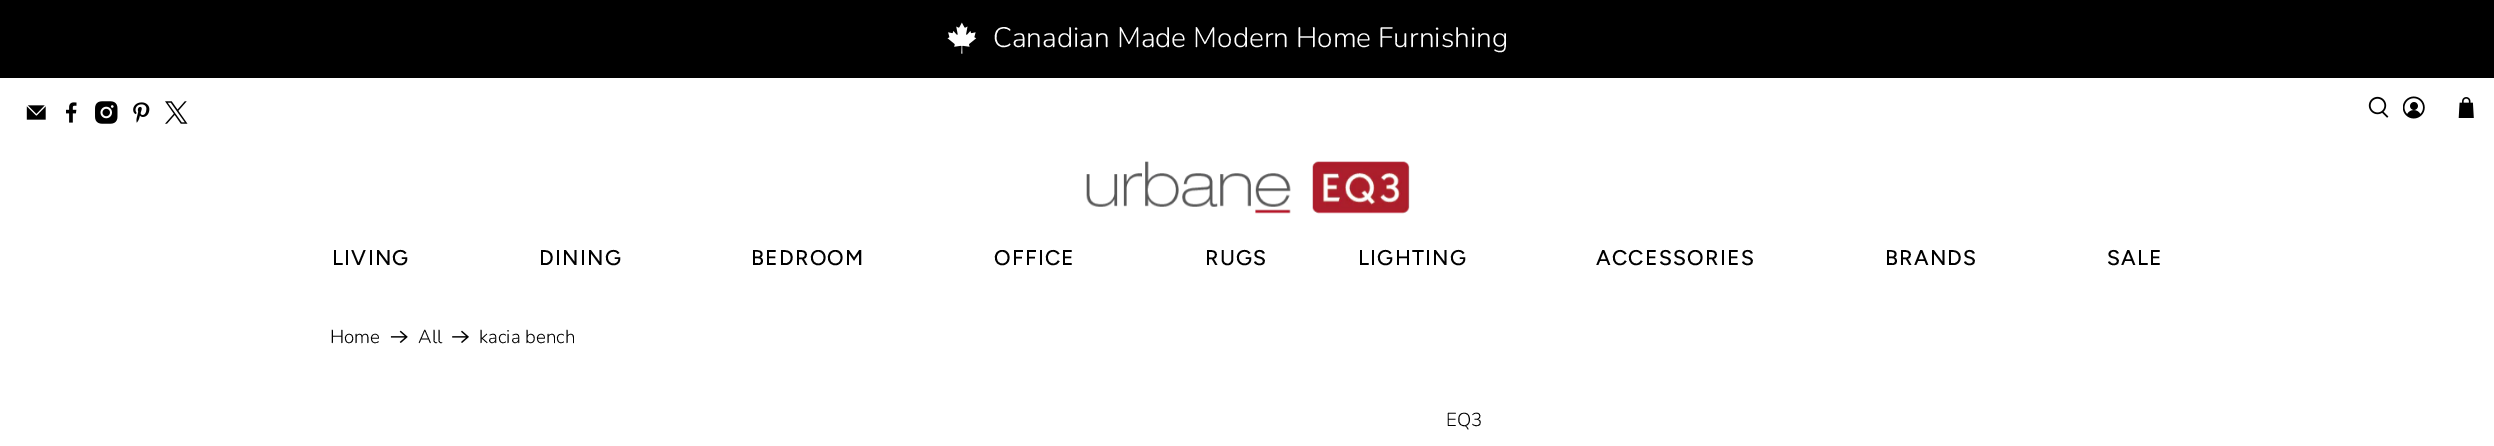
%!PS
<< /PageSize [2494 446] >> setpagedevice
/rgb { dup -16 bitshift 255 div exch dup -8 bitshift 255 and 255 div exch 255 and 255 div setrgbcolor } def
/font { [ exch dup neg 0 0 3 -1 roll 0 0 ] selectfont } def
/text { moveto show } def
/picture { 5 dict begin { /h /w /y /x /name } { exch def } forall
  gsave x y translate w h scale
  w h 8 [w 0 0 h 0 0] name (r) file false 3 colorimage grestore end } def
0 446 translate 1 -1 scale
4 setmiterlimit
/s1 { /Nunito-Light 28.1 font 16#FFFFFF rgb } def
/s2 { /Nunito-Light 18.75 font 16#000000 rgb } def
16#FFFFFF rgb
0 0 2494 446 rectfill
16#000000 rgb
0 0 2494 78 rectfill
(pic1.raw) 947 22 30 32 picture
s1
(Canadian Made Modern Home Furnishing) 993 47 text
(pic2.raw) 26 105 20 15 picture
(pic3.raw) 66 102 11 21 picture
(pic4.raw) 95 101 23 23 picture
(pic5.raw) 133 102 17 21 picture
(pic6.raw) 165 101 23 23 picture
(pic7.raw) 2368 96 21 22 picture
(pic8.raw) 2403 96 22 23 picture
(pic9.raw) 2458 97 16 21 picture
(pic10.raw) 1086 161 324 53 picture
/Figtree-Medium 21.25 font
16#000000 rgb
332 265 moveto 1.25 0 (LIVING) ashow
539 265 moveto 1.25 0 (DINING) ashow
751 265 moveto 1.25 0 (BEDROOM) ashow
994 265 moveto 1.25 0 (OFFICE) ashow
1205 265 moveto 1.25 0 (RUGS) ashow
1358 265 moveto 1.25 0 (LIGHTING) ashow
1596 265 moveto 1.25 0 (ACCESSORIES) ashow
1885 265 moveto 1.25 0 (BRANDS) ashow
2107 265 moveto 1.25 0 (SALE) ashow
s2
(Home) 330 343 text
(pic11.raw) 390 330 18 13 picture
(All) 418 343 text
(pic12.raw) 452 330 17 13 picture
(kacia bench) 479 343 text
(EQ3) 1446 426 text
showpage
